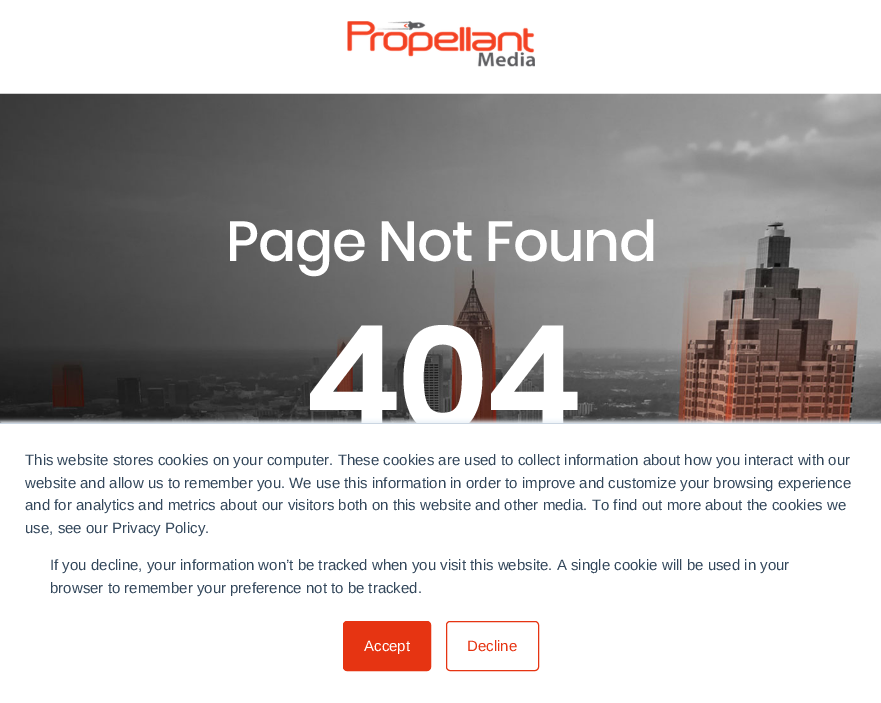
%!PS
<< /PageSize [881 703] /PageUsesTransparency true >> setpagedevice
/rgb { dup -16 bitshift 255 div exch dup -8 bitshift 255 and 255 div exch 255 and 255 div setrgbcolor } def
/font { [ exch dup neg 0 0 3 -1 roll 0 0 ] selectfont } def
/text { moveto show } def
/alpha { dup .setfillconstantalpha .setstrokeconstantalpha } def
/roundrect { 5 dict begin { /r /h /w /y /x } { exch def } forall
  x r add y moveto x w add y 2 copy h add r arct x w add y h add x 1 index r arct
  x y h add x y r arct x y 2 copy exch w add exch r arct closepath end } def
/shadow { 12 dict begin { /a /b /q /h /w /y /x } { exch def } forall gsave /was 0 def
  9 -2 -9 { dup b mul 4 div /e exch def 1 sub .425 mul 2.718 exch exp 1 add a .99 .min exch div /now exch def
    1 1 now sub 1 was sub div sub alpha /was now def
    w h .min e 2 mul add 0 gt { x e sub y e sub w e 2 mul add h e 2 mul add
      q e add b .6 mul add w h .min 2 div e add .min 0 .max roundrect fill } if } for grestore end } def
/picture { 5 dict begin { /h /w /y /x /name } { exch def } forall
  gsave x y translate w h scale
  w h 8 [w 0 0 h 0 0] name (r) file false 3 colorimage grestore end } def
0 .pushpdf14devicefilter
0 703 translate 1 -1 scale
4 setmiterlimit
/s1 { /Poppins-Bold 144 font 16#FFFFFF rgb } def
/s2 { /LiberationSans-Regular 15 font 16#33475B rgb } def
/s3 { /LiberationSans-Regular 15 font 16#FFFFFF rgb } def
/s4 { /LiberationSans-Regular 15 font 16#E63412 rgb } def
16#FFFFFF rgb
0 0 881 703 rectfill
(pic1.raw) 347 21 188 46 picture
(pic2.raw) 0 93 881 330 picture
/Poppins-Medium 56.25 font
226 261 moveto -1 0 (Page Not Found) ashow
s1
(404) 305 432 text
16#EAF0F6 rgb
0 421 881 282 0 2 1 shadow
16#FFFFFF rgb
0 424 881 279 rectfill
16#CBD6E2 rgb
0 423 881 1 rectfill
s2
(This website stores cookies on your computer. These cookies are used to collect information about how you interact with our) 25 465 text
(website and allow us to remember you. We use this information in order to improve and customize your browsing experience) 25 488 text
(and for analytics and metrics about our visitors both on this website and other media. To find out more about the cookies we) 25 510 text
(use, see our Privacy Policy.) 25 533 text
(If you decline, your information won’t be tracked when you visit this website. A single cookie will be used in your) 50 570 text
(browser to remember your preference not to be tracked.) 50 593 text
16#E63412 rgb
343.5 621.5 87 49 3.5 roundrect gsave fill grestore
stroke
s3
(Accept) 364 651 text
16#E63412 rgb
446.5 621.5 92 49 3.5 roundrect stroke
(Decline) 467 651 text
.poppdf14devicefilter showpage
